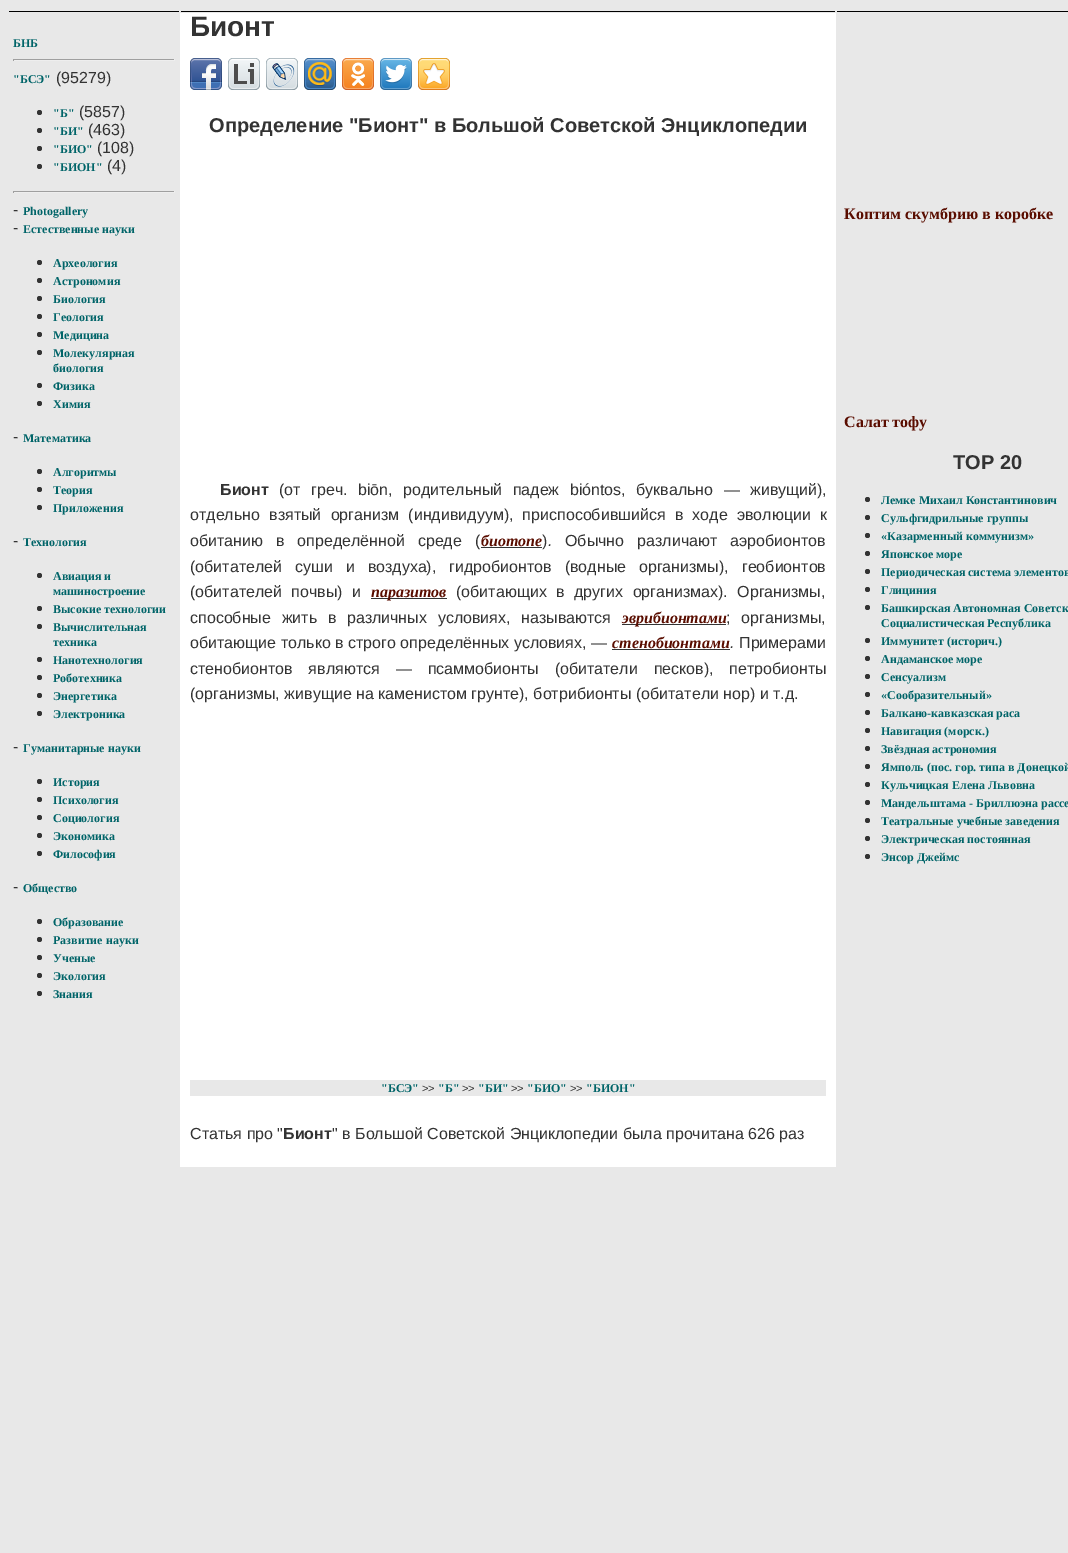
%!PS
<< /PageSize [1068 1553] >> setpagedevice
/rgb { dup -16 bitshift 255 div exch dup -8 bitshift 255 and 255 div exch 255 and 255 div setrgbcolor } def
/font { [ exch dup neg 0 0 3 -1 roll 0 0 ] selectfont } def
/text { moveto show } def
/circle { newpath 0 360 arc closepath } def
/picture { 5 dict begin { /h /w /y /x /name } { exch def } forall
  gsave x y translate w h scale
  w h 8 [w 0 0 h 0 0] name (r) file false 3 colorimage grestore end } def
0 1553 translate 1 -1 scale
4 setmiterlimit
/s1 { /LiberationSerif-Bold 12 font 16#006468 rgb } def
/s2 { /LiberationSans-Regular 16 font 16#333333 rgb } def
/s3 { /LiberationSans-Bold 28 font 16#333333 rgb } def
/s4 { /LiberationSans-Bold 20 font 16#333333 rgb } def
/s5 { /LiberationSans-Bold 16 font 16#333333 rgb } def
/s6 { /LiberationSerif-BoldItalic 16 font 16#5A0D00 rgb } def
/s7 { /LiberationSans-Italic 16 font 16#333333 rgb } def
/s8 { /LiberationSans-Regular 11 font 16#333333 rgb } def
/s9 { /LiberationSerif-Bold 16 font 16#5A0D00 rgb } def
16#E8E8E8 rgb
0 0 1068 1553 rectfill
16#000000 rgb
9 11 170 1 rectfill
181 11 654 1 rectfill
837 11 231 1 rectfill
s1
(БНБ) 13 47 text
16#9F9F9F rgb
13 59 162 1 rectfill
16#EEEEEE rgb
174 59 1 2 rectfill
13 60 162 1 rectfill
16#9F9F9F rgb
13 59 1 2 rectfill
s1
("БСЭ") 13 83 text
s2
(\(95279\)) 56 83 text
39.5 112.5 2.5 circle fill
s1
("Б") 53 117 text
s2
(\(5857\)) 79 117 text
39.5 130.5 2.5 circle fill
s1
("БИ") 53 135 text
s2
(\(463\)) 88 135 text
39.5 148.5 2.5 circle fill
s1
("БИО") 53 153 text
s2
(\(108\)) 97 153 text
39.5 166.5 2.5 circle fill
s1
("БИОН") 53 171 text
s2
(\(4\)) 107 171 text
16#9F9F9F rgb
13 191 162 1 rectfill
16#EEEEEE rgb
174 191 1 2 rectfill
13 192 162 1 rectfill
16#9F9F9F rgb
13 191 1 2 rectfill
s2
(-) 13 215 text
s1
(Photogallery) 23 215 text
s2
(-) 13 233 text
s1
(Естественные науки) 23 233 text
16#333333 rgb
39.5 262.5 2.5 circle fill
s1
(Археология) 53 267 text
16#333333 rgb
39.5 280.5 2.5 circle fill
s1
(Астрономия) 53 285 text
16#333333 rgb
39.5 298.5 2.5 circle fill
s1
(Биология) 53 303 text
16#333333 rgb
39.5 316.5 2.5 circle fill
s1
(Геология) 53 321 text
16#333333 rgb
39.5 334.5 2.5 circle fill
s1
(Медицина) 53 339 text
16#333333 rgb
39.5 352.5 2.5 circle fill
s1
(Молекулярная) 53 357 text
(биология) 53 372 text
16#333333 rgb
39.5 385.5 2.5 circle fill
s1
(Физика) 53 390 text
16#333333 rgb
39.5 403.5 2.5 circle fill
s1
(Химия) 53 408 text
s2
(-) 13 442 text
s1
(Математика) 23 442 text
16#333333 rgb
39.5 471.5 2.5 circle fill
s1
(Алгоритмы) 53 476 text
16#333333 rgb
39.5 489.5 2.5 circle fill
s1
(Теория) 53 494 text
16#333333 rgb
39.5 507.5 2.5 circle fill
s1
(Приложения) 53 512 text
s2
(-) 13 546 text
s1
(Технология) 23 546 text
16#333333 rgb
39.5 575.5 2.5 circle fill
s1
(Авиация и) 53 580 text
(машиностроение) 53 595 text
16#333333 rgb
39.5 608.5 2.5 circle fill
s1
(Высокие технологии) 53 613 text
16#333333 rgb
39.5 626.5 2.5 circle fill
s1
(Вычислительная) 53 631 text
(техника) 53 646 text
16#333333 rgb
39.5 659.5 2.5 circle fill
s1
(Нанотехнология) 53 664 text
16#333333 rgb
39.5 677.5 2.5 circle fill
s1
(Роботехника) 53 682 text
16#333333 rgb
39.5 695.5 2.5 circle fill
s1
(Энергетика) 53 700 text
16#333333 rgb
39.5 713.5 2.5 circle fill
s1
(Электроника) 53 718 text
s2
(-) 13 752 text
s1
(Гуманитарные науки) 23 752 text
16#333333 rgb
39.5 781.5 2.5 circle fill
s1
(История) 53 786 text
16#333333 rgb
39.5 799.5 2.5 circle fill
s1
(Психология) 53 804 text
16#333333 rgb
39.5 817.5 2.5 circle fill
s1
(Социология) 53 822 text
16#333333 rgb
39.5 835.5 2.5 circle fill
s1
(Экономика) 53 840 text
16#333333 rgb
39.5 853.5 2.5 circle fill
s1
(Философия) 53 858 text
s2
(-) 13 892 text
s1
(Общество) 23 892 text
16#333333 rgb
39.5 921.5 2.5 circle fill
s1
(Образование) 53 926 text
16#333333 rgb
39.5 939.5 2.5 circle fill
s1
(Развитие науки) 53 944 text
16#333333 rgb
39.5 957.5 2.5 circle fill
s1
(Ученые) 53 962 text
16#333333 rgb
39.5 975.5 2.5 circle fill
s1
(Экология) 53 980 text
16#333333 rgb
39.5 993.5 2.5 circle fill
s1
(Знания) 53 998 text
16#FFFFFF rgb
180 13 656 1154 rectfill
s3
(Бионт) 190 36 text
(pic1.raw) 190 58 32 32 picture
(pic2.raw) 228 58 32 32 picture
(pic3.raw) 266 58 32 32 picture
(pic4.raw) 304 58 32 32 picture
(pic5.raw) 342 58 32 32 picture
(pic6.raw) 380 58 32 32 picture
(pic7.raw) 418 58 32 32 picture
s4
(Определение "Бионт" в Большой Советской Энциклопедии) 209 132 text
s5
(Бионт) 220 495 text
/LiberationSans-Regular 16 font
279 495 moveto 6 0 32 (\(от греч. biōn, родительный падеж bióntos, буквально — живущий\),) widthshow
190 520 moveto 4.75 0 32 (отдельно взятый организм \(индивидуум\), приспособившийся в ходе эволюции к) widthshow
190 546 moveto 8.5 0 32 (обитанию в определённой среде \() widthshow
s6
(биотопе) 481 546 text
16#333333 rgb
481 547 61 1 rectfill
s2
(\)) 542 546 text
s7
(.) 548 546 text
/LiberationSans-Regular 16 font
565 546 moveto 8.5 0 32 (Обычно различают аэробионтов) widthshow
190 572 moveto 8.5 0 32 (\(обитателей суши и воздуха\), гидробионтов \(водные организмы\), геобионтов) widthshow
190 597 moveto 5 0 32 (\(обитателей почвы\) и) widthshow
371 598 76 1 rectfill
s6
(паразитов) 371 597 text
/LiberationSans-Regular 16 font
16#333333 rgb
456 597 moveto 5 0 32 (\(обитающих в других организмах\). Организмы,) widthshow
190 623 moveto 6.25 0 32 (способные жить в различных условиях, называются) widthshow
622 624 104 1 rectfill
s6
(эврибионтами) 622 623 text
/LiberationSans-Regular 16 font
16#333333 rgb
726 623 moveto 6.25 0 32 (; организмы,) widthshow
(обитающие только в строго определённых условиях, —) 190 648 text
s6
(стенобионтами) 612 648 text
s7
(.) 730 648 text
612 649 118 1 rectfill
s2
(Примерами) 739 648 text
190 674 moveto 11.5 0 32 (стенобионтов являются — псаммобионты \(обитатели песков\), петробионты) widthshow
(\(организмы, живущие на каменистом грунте\), ботрибионты \(обитатели нор\) и т.д.) 190 699 text
16#E8E8E8 rgb
190 1080 636 16 rectfill
s1
("БСЭ") 381 1092 text
s8
(>>) 422 1092 text
s1
("Б") 438 1092 text
s8
(>>) 462 1092 text
s1
("БИ") 478 1092 text
s8
(>>) 511 1092 text
s1
("БИО") 527 1092 text
s8
(>>) 570 1092 text
s1
("БИОН") 586 1092 text
s2
(Статья про ") 190 1139 text
s5
(Бионт) 283 1139 text
s2
(" в Большой Советской Энциклопедии была прочитана 626 раз) 332 1139 text
s9
(Коптим скумбрию в коробке) 844 219 text
(Салат тофу) 844 427 text
s4
(TOP 20) 953 469 text
867.5 499.5 2.5 circle fill
s1
(Лемке Михаил Константинович) 881 504 text
16#333333 rgb
867.5 517.5 2.5 circle fill
s1
(Сульфгидрильные группы) 881 522 text
16#333333 rgb
867.5 535.5 2.5 circle fill
s1
(«Казарменный коммунизм») 881 540 text
16#333333 rgb
867.5 553.5 2.5 circle fill
s1
(Японское море) 881 558 text
16#333333 rgb
867.5 571.5 2.5 circle fill
s1
(Периодическая система элементов) 881 576 text
16#333333 rgb
867.5 589.5 2.5 circle fill
s1
(Глициния) 881 594 text
16#333333 rgb
867.5 607.5 2.5 circle fill
s1
(Башкирская Автономная Советск) 881 612 text
(Социалистическая Республика) 881 627 text
16#333333 rgb
867.5 640.5 2.5 circle fill
s1
(Иммунитет \(историч.\)) 881 645 text
16#333333 rgb
867.5 658.5 2.5 circle fill
s1
(Андаманское море) 881 663 text
16#333333 rgb
867.5 676.5 2.5 circle fill
s1
(Сенсуализм) 881 681 text
16#333333 rgb
867.5 694.5 2.5 circle fill
s1
(«Сообразительный») 881 699 text
16#333333 rgb
867.5 712.5 2.5 circle fill
s1
(Балкано-кавказская раса) 881 717 text
16#333333 rgb
867.5 730.5 2.5 circle fill
s1
(Навигация \(морск.\)) 881 735 text
16#333333 rgb
867.5 748.5 2.5 circle fill
s1
(Звёздная астрономия) 881 753 text
16#333333 rgb
867.5 766.5 2.5 circle fill
s1
(Ямполь \(пос. гор. типа в Донецкой) 881 771 text
16#333333 rgb
867.5 784.5 2.5 circle fill
s1
(Кульчицкая Елена Львовна) 881 789 text
16#333333 rgb
867.5 802.5 2.5 circle fill
s1
(Мандельштама - Бриллюэна рассе) 881 807 text
16#333333 rgb
867.5 820.5 2.5 circle fill
s1
(Театральные учебные заведения) 881 825 text
16#333333 rgb
867.5 838.5 2.5 circle fill
s1
(Электрическая постоянная) 881 843 text
16#333333 rgb
867.5 856.5 2.5 circle fill
s1
(Энсор Джеймс) 881 861 text
showpage
